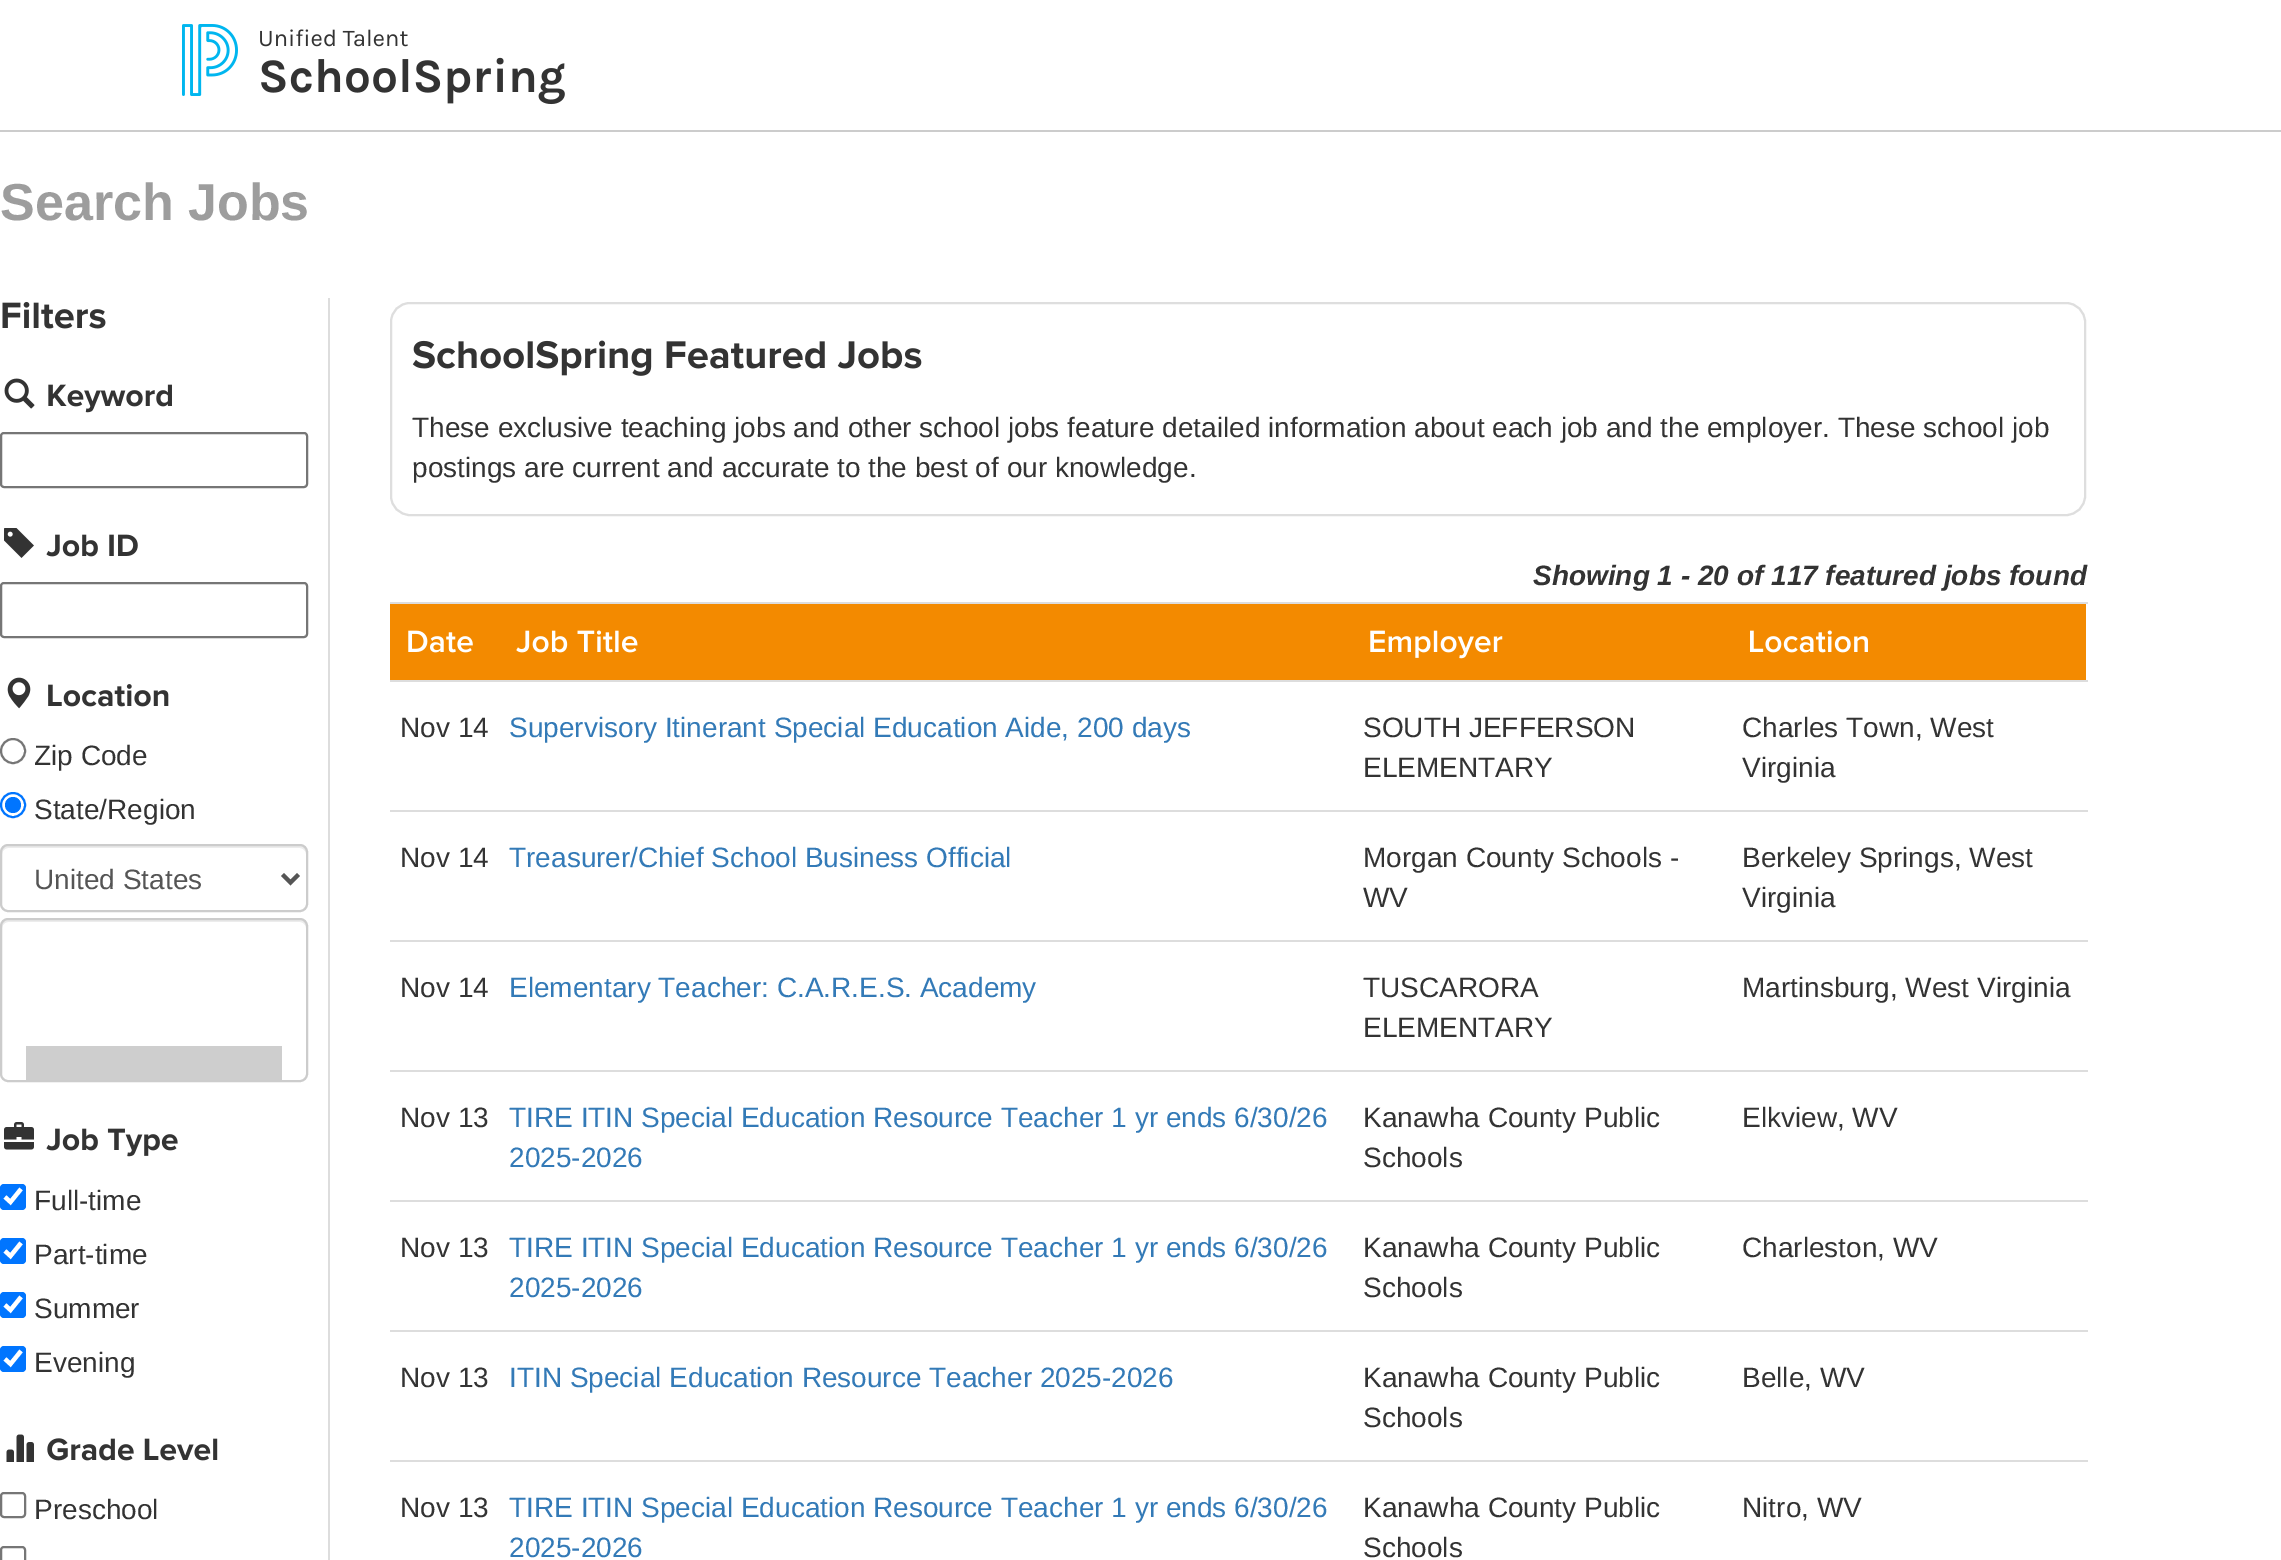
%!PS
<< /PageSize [2281 1560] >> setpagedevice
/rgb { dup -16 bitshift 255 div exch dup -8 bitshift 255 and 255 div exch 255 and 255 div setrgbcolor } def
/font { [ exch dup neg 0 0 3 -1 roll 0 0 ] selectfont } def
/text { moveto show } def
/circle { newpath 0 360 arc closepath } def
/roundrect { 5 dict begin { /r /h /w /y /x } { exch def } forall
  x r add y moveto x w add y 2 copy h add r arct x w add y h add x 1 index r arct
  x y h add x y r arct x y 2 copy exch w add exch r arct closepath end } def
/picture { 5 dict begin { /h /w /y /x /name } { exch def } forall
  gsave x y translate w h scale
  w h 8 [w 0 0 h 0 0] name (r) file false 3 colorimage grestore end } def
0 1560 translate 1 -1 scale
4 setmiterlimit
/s1 { /LiberationSans-Bold 52 font 16#9D9D9D rgb } def
/s2 { /LiberationSans-Regular 28 font 16#333333 rgb } def
/s3 { /LiberationSans-Regular 28 font 16#555555 rgb } def
/s4 { /LiberationSans-BoldItalic 28 font 16#333333 rgb } def
/s5 { /LiberationSans-Regular 28 font 16#337AB7 rgb } def
16#FFFFFF rgb
0 0 2281 1560 rectfill
16#CCCCCC rgb
0 130 2281 2 rectfill
(pic1.raw) 182 24 383 81 picture
s1
(Search Jobs) 0 220 text
16#DDDDDD rgb
328 298 2 1262 rectfill
(pic2.raw) 2 301 104 28 picture
(pic3.raw) 4 378 31 31 picture
(pic4.raw) 48 384 124 29 picture
16#767676 rgb
2 setlinewidth
1 433 306 54 3 roundrect stroke
(pic5.raw) 4 528 30 30 picture
(pic6.raw) 46 534 92 23 picture
1 583 306 54 3 roundrect stroke
(pic7.raw) 7 677 24 32 picture
(pic8.raw) 48 684 121 23 picture
13 751 12 circle stroke
s2
(Zip Code) 34 765 text
16#0075FF rgb
13 805 12 circle stroke
13 805 8 circle fill
s2
(State/Region) 34 819 text
16#ECECEC rgb
8 848 moveto 300 848 lineto 303 848 306 851 306 854 curveto 306 852 lineto 306 849 303 846 300 846 curveto 8 846 lineto 5 846 2 849 2 852 curveto 2 854 lineto 2 851 5 848 8 848 curveto closepath fill
16#CCCCCC rgb
1 845 306 66 7 roundrect stroke
16#555555 rgb
4 setlinewidth
282.5 874.5 moveto 290.5 882.5 lineto 298.5 874.5 lineto stroke
(United States) 34 889 text
16#ECECEC rgb
8 922 moveto 300 922 lineto 303 922 306 925 306 928 curveto 306 926 lineto 306 923 303 920 300 920 curveto 8 920 lineto 5 920 2 923 2 926 curveto 2 928 lineto 2 925 5 922 8 922 curveto closepath fill
16#CCCCCC rgb
2 setlinewidth
1 919 306 162 7 roundrect stroke
16#CECECE rgb
26 1046 256 34 rectfill
(pic9.raw) 4 1122 30 28 picture
(pic10.raw) 46 1128 132 29 picture
16#0075FF rgb
0 1184 26 26 4 roundrect fill
16#FFFFFF rgb
4.2 setlinewidth
5 1197 moveto 10.5 1202 lineto 21 1189 lineto stroke
s2
(Full-time) 34 1210 text
16#0075FF rgb
0 1238 26 26 4 roundrect fill
16#FFFFFF rgb
5 1251 moveto 10.5 1256 lineto 21 1243 lineto stroke
s2
(Part-time) 34 1264 text
16#0075FF rgb
0 1292 26 26 4 roundrect fill
16#FFFFFF rgb
5 1305 moveto 10.5 1310 lineto 21 1297 lineto stroke
s2
(Summer) 34 1318 text
16#0075FF rgb
0 1346 26 26 4 roundrect fill
16#FFFFFF rgb
5 1359 moveto 10.5 1364 lineto 21 1351 lineto stroke
s2
(Evening) 34 1372 text
(pic11.raw) 6 1434 28 28 picture
(pic12.raw) 47 1438 171 23 picture
16#767676 rgb
2 setlinewidth
1 1493 24 24 3 roundrect stroke
s2
(Preschool) 34 1519 text
16#767676 rgb
1 1547 24 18 3 roundrect stroke
16#DEDEDE rgb
391 303 1694 212 19 roundrect stroke
(pic13.raw) 412 340 510 36 picture
s2
(These exclusive teaching jobs and other school jobs feature detailed information about each job and the employer. These school job) 412 437 text
(postings are current and accurate to the best of our knowledge.) 412 477 text
s4
(Showing 1 - 20 of 117 featured jobs found) 1533 585 text
16#DDDDDD rgb
390 602 1698 2 rectfill
16#F38A00 rgb
390 604 1696 76 rectfill
(pic14.raw) 1750 630 118 23 picture
(pic15.raw) 408 630 65 23 picture
(pic16.raw) 516 630 122 23 picture
(pic17.raw) 1370 630 133 29 picture
s2
(Nov 14) 400 737 text
s5
(Supervisory Itinerant Special Education Aide, 200 days) 509 737 text
s2
(SOUTH JEFFERSON) 1363 737 text
(ELEMENTARY) 1363 777 text
16#DDDDDD rgb
390 680 1698 2 rectfill
s2
(Charles Town, West) 1742 737 text
(Virginia) 1742 777 text
(Nov 14) 400 867 text
s5
(Treasurer/Chief School Business Official) 509 867 text
s2
(Morgan County Schools -) 1363 867 text
(WV) 1363 907 text
16#DDDDDD rgb
390 810 1698 2 rectfill
s2
(Berkeley Springs, West) 1742 867 text
(Virginia) 1742 907 text
(Nov 14) 400 997 text
s5
(Elementary Teacher: C.A.R.E.S. Academy) 509 997 text
s2
(TUSCARORA) 1363 997 text
(ELEMENTARY) 1363 1037 text
16#DDDDDD rgb
390 940 1698 2 rectfill
s2
(Martinsburg, West Virginia) 1742 997 text
(Nov 13) 400 1127 text
s5
(TIRE ITIN Special Education Resource Teacher 1 yr ends 6/30/26) 509 1127 text
(2025-2026) 509 1167 text
s2
(Kanawha County Public) 1363 1127 text
(Schools) 1363 1167 text
16#DDDDDD rgb
390 1070 1698 2 rectfill
s2
(Elkview, WV) 1742 1127 text
(Nov 13) 400 1257 text
s5
(TIRE ITIN Special Education Resource Teacher 1 yr ends 6/30/26) 509 1257 text
(2025-2026) 509 1297 text
s2
(Kanawha County Public) 1363 1257 text
(Schools) 1363 1297 text
16#DDDDDD rgb
390 1200 1698 2 rectfill
s2
(Charleston, WV) 1742 1257 text
(Nov 13) 400 1387 text
s5
(ITIN Special Education Resource Teacher 2025-2026) 509 1387 text
s2
(Kanawha County Public) 1363 1387 text
(Schools) 1363 1427 text
16#DDDDDD rgb
390 1330 1698 2 rectfill
s2
(Belle, WV) 1742 1387 text
(Nov 13) 400 1517 text
s5
(TIRE ITIN Special Education Resource Teacher 1 yr ends 6/30/26) 509 1517 text
(2025-2026) 509 1557 text
s2
(Kanawha County Public) 1363 1517 text
(Schools) 1363 1557 text
16#DDDDDD rgb
390 1460 1698 2 rectfill
s2
(Nitro, WV) 1742 1517 text
showpage
